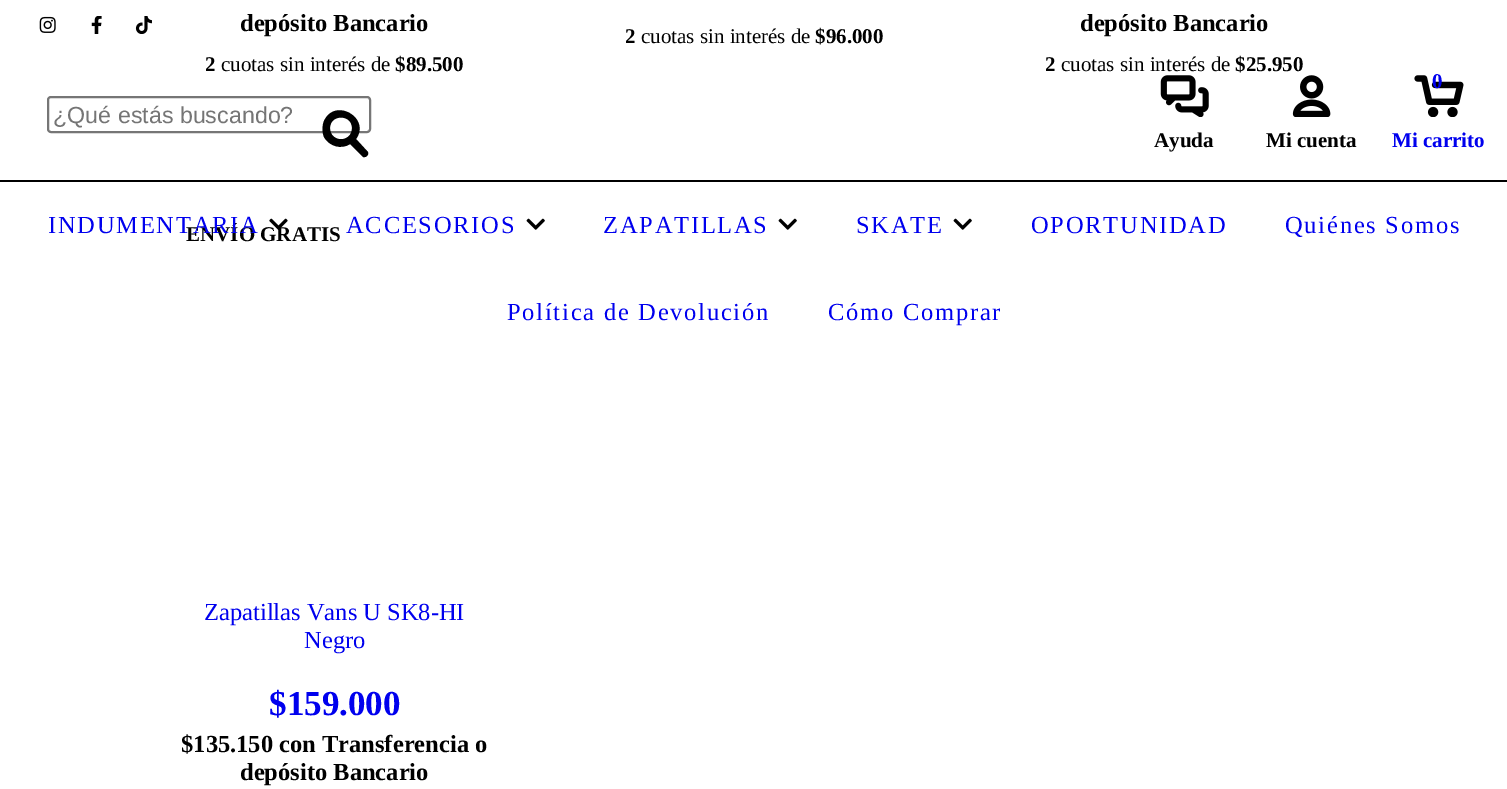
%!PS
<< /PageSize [1507 789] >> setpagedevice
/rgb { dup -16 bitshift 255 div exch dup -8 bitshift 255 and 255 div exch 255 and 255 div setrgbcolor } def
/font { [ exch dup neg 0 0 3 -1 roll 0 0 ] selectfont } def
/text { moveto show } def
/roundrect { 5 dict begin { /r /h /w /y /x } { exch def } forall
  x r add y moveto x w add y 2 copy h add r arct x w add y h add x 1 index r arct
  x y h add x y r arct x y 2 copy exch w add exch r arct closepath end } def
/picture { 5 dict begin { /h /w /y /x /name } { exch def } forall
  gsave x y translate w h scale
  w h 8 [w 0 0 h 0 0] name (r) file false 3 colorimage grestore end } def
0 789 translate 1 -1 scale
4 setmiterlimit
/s1 { /LiberationSerif-Bold 24.5 font 16#000000 rgb } def
/s2 { /LiberationSerif-Bold 21 font 16#000000 rgb } def
/s3 { /LiberationSerif-Regular 21 font 16#000000 rgb } def
/s4 { /LiberationSerif-Regular 24.5 font 16#0000EE rgb } def
/s5 { /LiberationSerif-Bold 35 font 16#0000EE rgb } def
/s6 { /LiberationSans-Regular 23.25 font 16#757575 rgb } def
/s7 { /LiberationSerif-Bold 21 font 16#0000EE rgb } def
16#FFFFFF rgb
0 0 1507 789 rectfill
s1
(depósito Bancario) 240 31 text
s2
(2) 205 71 text
s3
(cuotas sin interés de) 221 71 text
s2
($89.500) 395 71 text
(2) 625 43 text
s3
(cuotas sin interés de) 641 43 text
s2
($96.000) 815 43 text
s1
(depósito Bancario) 1080 31 text
s2
(2) 1045 71 text
s3
(cuotas sin interés de) 1061 71 text
s2
($25.950) 1235 71 text
(ENVÍO GRATIS) 186 241 text
s4
(Zapatillas Vans U SK8-HI) 204 620 text
(Negro) 304 648 text
s5
($159.000) 269 715 text
s1
($135.150 con Transferencia o) 181 752 text
(depósito Bancario) 240 780 text
(pic1.raw) 39 16 17 17 picture
(pic2.raw) 91 16 11 18 picture
(pic3.raw) 135 16 17 18 picture
16#767676 rgb
2 setlinewidth
48 97 322 35 3 roundrect stroke
s6
(¿Qué estás buscando?) 53 123 text
16#000000 rgb
367 151 moveto 356 139 lineto 371 118 335 97 324 121 curveto 322 126 322 132 324 137 curveto 329 146 341 150 350 144 curveto 363 157 lineto 367 158 370 153 367 151 curveto closepath 330 128 moveto 330 114 352 114 352 128 curveto 352 143 330 143 330 128 curveto closepath fill
(pic4.raw) 1160 75 49 42 picture
s2
(Ayuda) 1154 147 text
(pic5.raw) 1292 75 39 42 picture
(Mi cuenta) 1266 147 text
(pic6.raw) 1414 75 50 42 picture
s7
(0) 1432 88 text
(Mi carrito) 1392 147 text
16#000000 rgb
0 180 1507 2 rectfill
/LiberationSerif-Regular 24.5 font
16#0000EE rgb
48 233 moveto 1.75 0 (INDUMENTARIA) ashow
(pic7.raw) 269 218 19 12 picture
346 233 moveto 1.75 0 (ACCESORIOS) ashow
(pic8.raw) 526 218 19 12 picture
603 233 moveto 1.75 0 (ZAPATILLAS) ashow
(pic8.raw) 778 218 19 12 picture
856 233 moveto 1.75 0 (SKATE) ashow
(pic8.raw) 953 218 19 12 picture
1031 233 moveto 1.75 0 (OPORTUNIDAD) ashow
1285 233 moveto 1.75 0 (Quiénes Somos) ashow
507 320 moveto 1.75 0 (Política de Devolución) ashow
828 320 moveto 1.75 0 (Cómo Comprar) ashow
showpage
